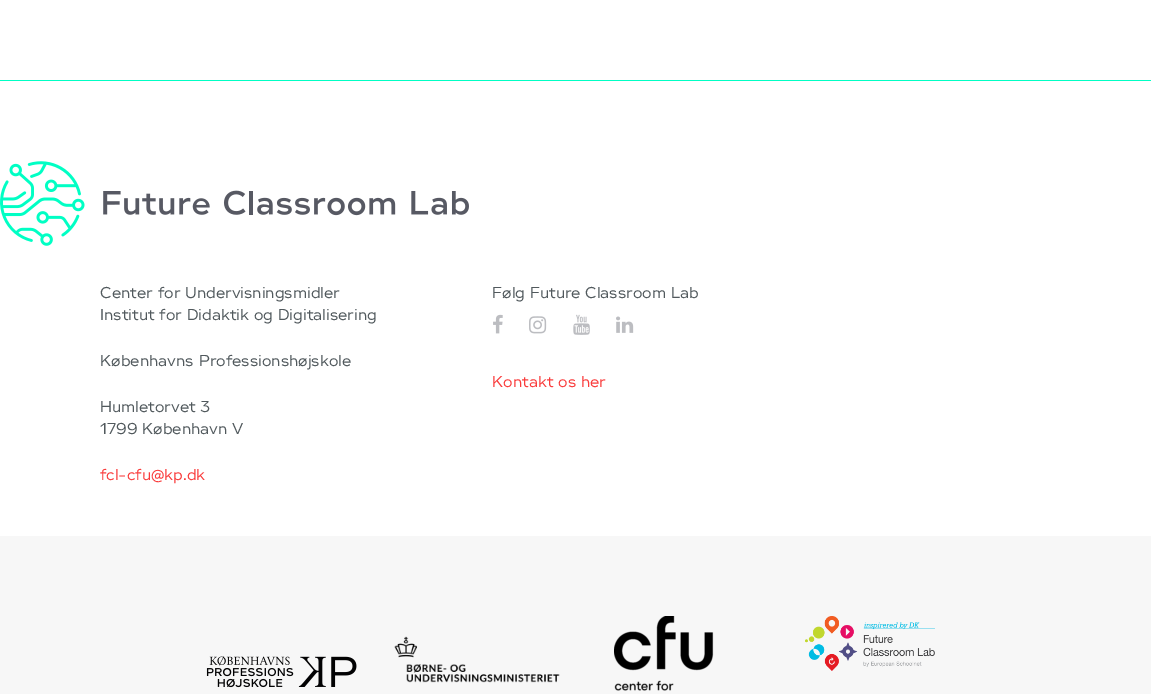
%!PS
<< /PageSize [1151 694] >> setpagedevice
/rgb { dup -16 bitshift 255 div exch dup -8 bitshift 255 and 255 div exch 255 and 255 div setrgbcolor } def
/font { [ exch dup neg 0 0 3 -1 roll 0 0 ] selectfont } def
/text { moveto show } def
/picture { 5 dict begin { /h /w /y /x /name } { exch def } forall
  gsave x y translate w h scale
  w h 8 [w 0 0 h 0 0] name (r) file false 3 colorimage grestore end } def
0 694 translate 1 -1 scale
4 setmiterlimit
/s1 { /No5-Regular 15 font 16#51595D rgb } def
/s2 { /No5-Regular 15 font 16#FA3C3C rgb } def
16#FFFFFF rgb
0 0 1151 694 rectfill
16#00FFC4 rgb
0 80 1151 1 rectfill
(pic1.raw) 0 161 469 85 picture
s1
(Center for Undervisningsmidler) 100 298 text
(Institut for Didaktik og Digitalisering) 100 320 text
(Københavns Professionshøjskole) 100 366 text
(Humletorvet 3) 100 412 text
(1799 København V) 100 434 text
s2
(fcl-cfu@kp.dk) 100 480 text
s1
(Følg Future Classroom Lab) 492 298 text
(pic2.raw) 493 314 10 20 picture
(pic3.raw) 529 316 18 18 picture
(pic4.raw) 573 314 17 21 picture
(pic5.raw) 616 316 18 17 picture
s2
(Kontakt os her) 492 387 text
16#F7F7F7 rgb
0 536 1151 158 rectfill
(pic6.raw) 206 656 151 32 picture
(pic7.raw) 394 636 166 47 picture
(pic8.raw) 614 616 100 75 picture
(pic9.raw) 805 616 130 55 picture
showpage
